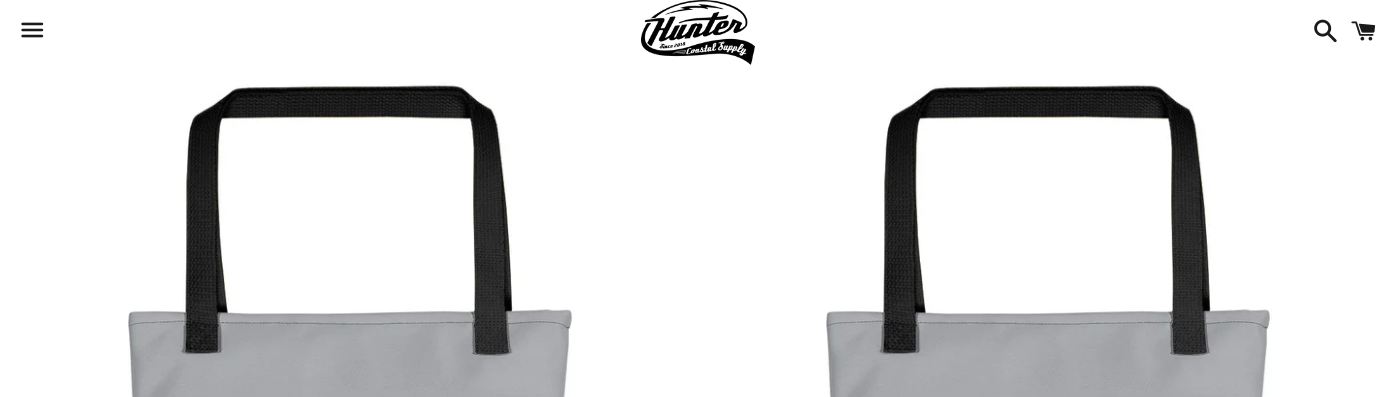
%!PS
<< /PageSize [1396 397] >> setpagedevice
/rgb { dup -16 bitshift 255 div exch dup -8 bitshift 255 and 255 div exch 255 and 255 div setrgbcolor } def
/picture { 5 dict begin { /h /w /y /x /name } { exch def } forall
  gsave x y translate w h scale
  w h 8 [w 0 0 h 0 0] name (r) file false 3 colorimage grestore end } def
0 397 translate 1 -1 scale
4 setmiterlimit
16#FFFFFF rgb
0 0 1396 397 rectfill
(pic1.raw) 21 22 23 16 picture
(pic2.raw) 641 0 114 65 picture
(pic3.raw) 1314 19 23 24 picture
(pic4.raw) 1351 21 25 20 picture
(pic5.raw) 128 82 446 315 picture
(pic6.raw) 826 82 446 315 picture
showpage
